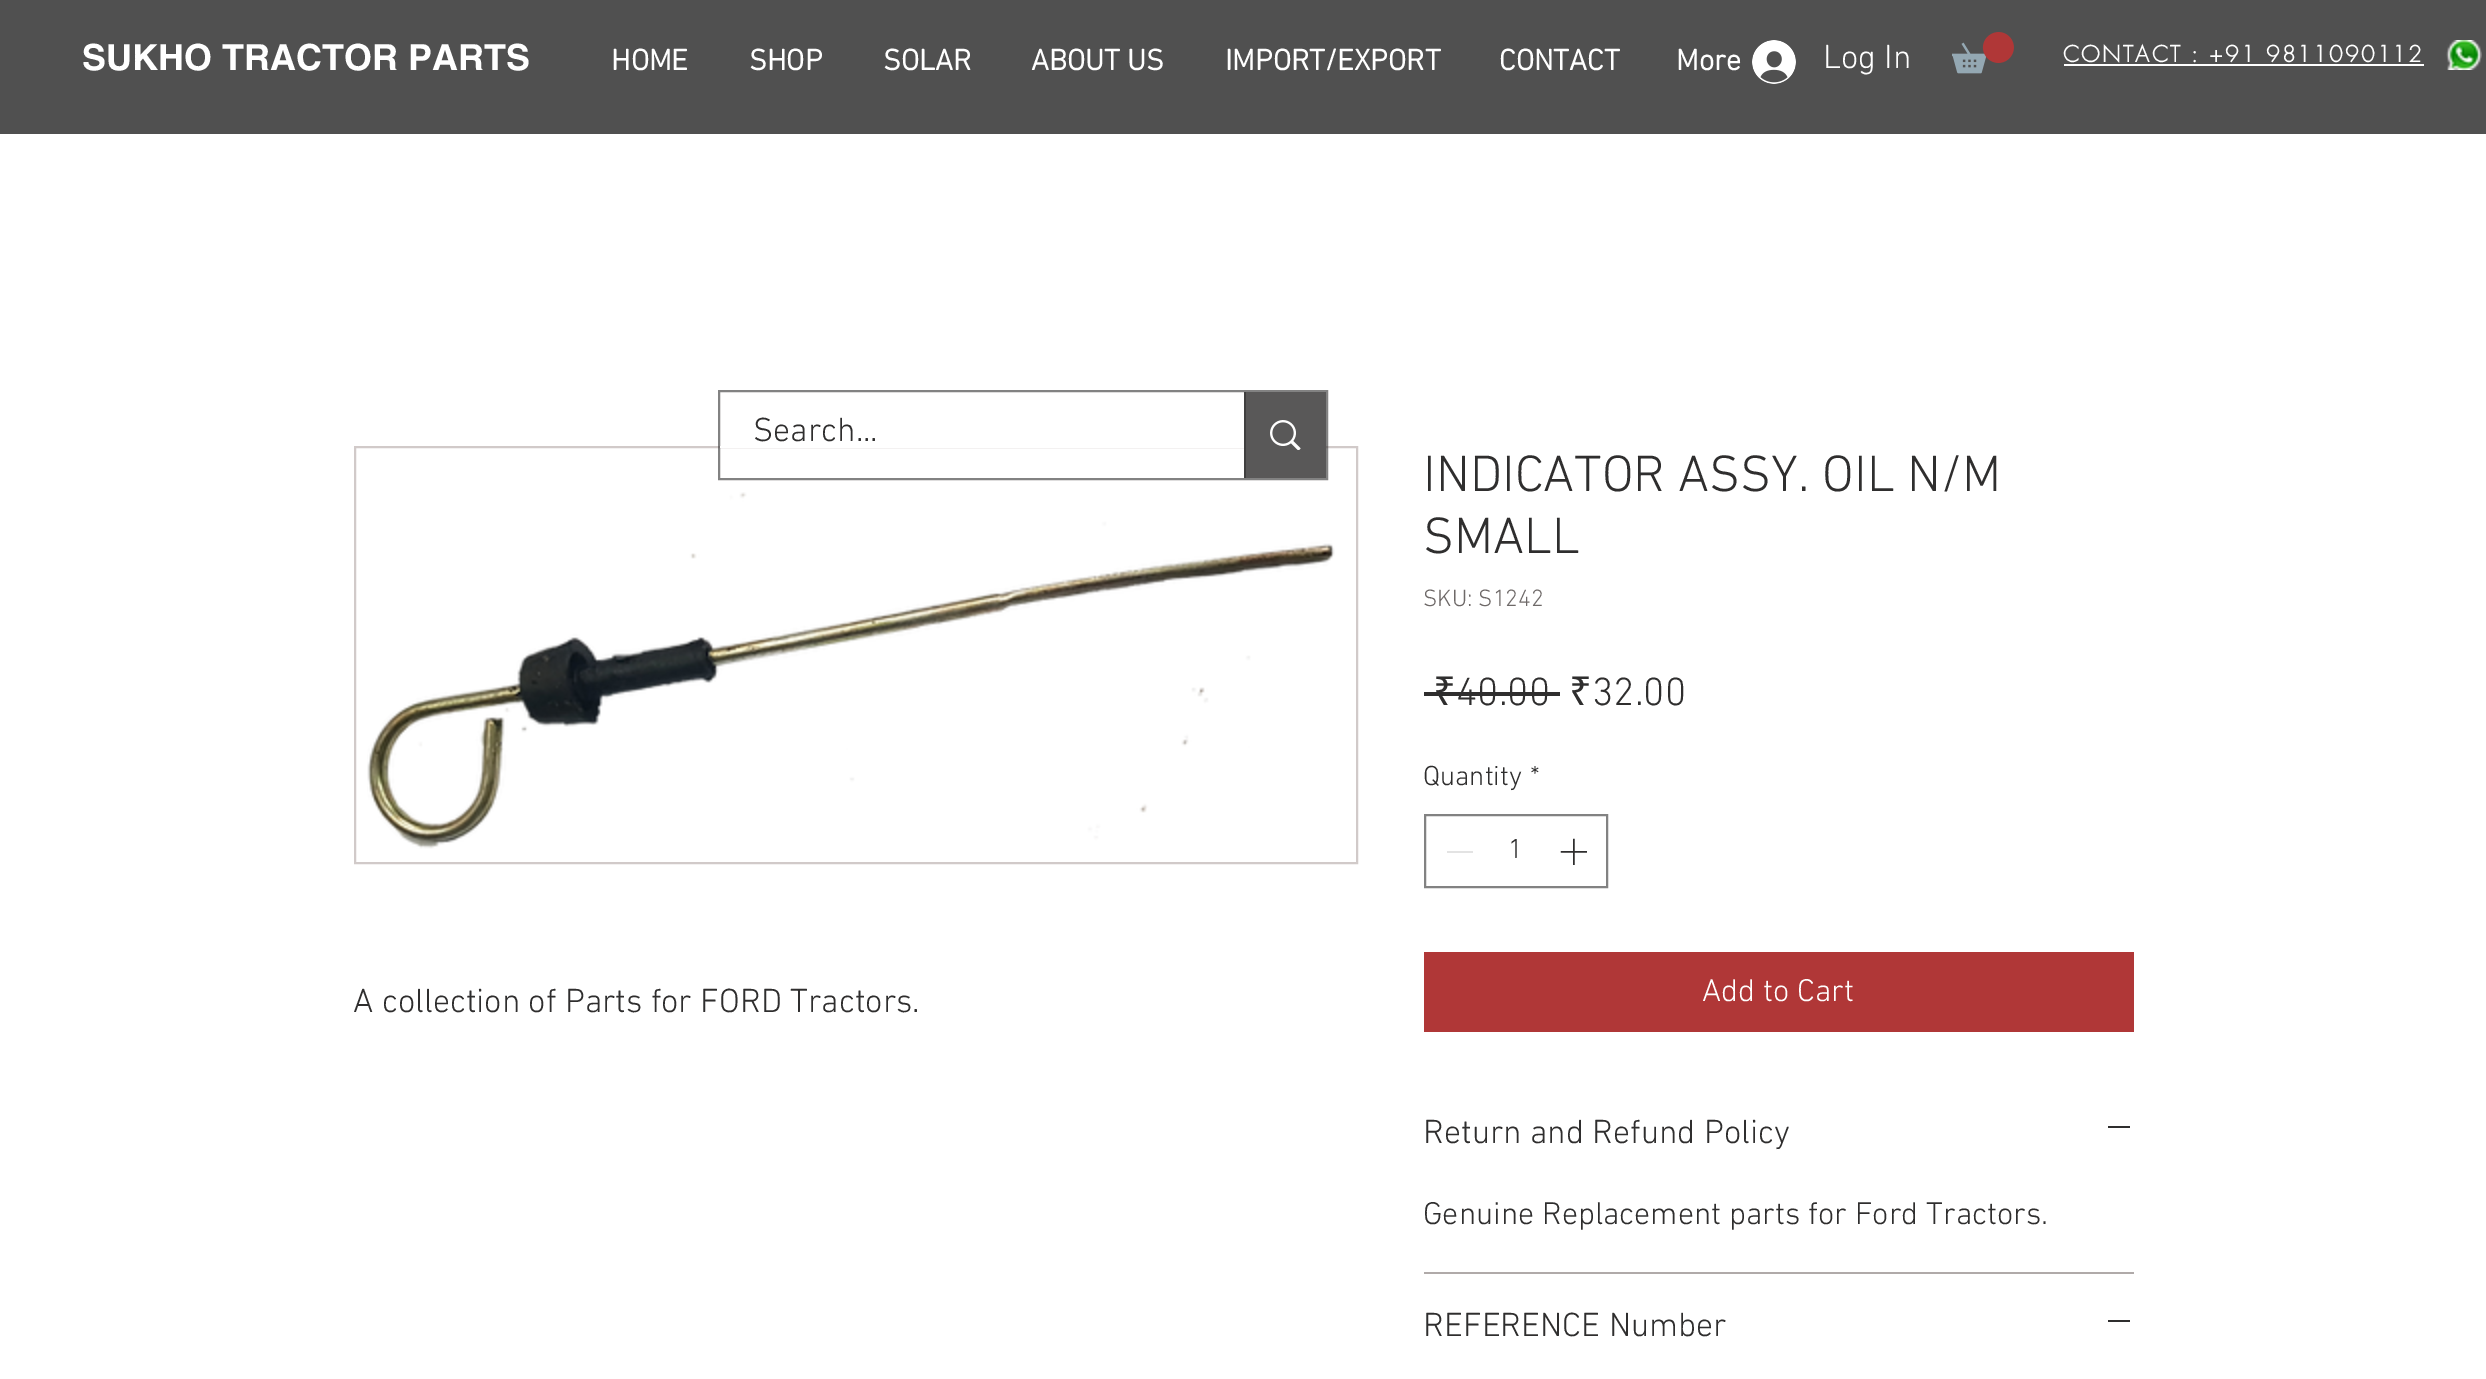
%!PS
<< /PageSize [2486 1379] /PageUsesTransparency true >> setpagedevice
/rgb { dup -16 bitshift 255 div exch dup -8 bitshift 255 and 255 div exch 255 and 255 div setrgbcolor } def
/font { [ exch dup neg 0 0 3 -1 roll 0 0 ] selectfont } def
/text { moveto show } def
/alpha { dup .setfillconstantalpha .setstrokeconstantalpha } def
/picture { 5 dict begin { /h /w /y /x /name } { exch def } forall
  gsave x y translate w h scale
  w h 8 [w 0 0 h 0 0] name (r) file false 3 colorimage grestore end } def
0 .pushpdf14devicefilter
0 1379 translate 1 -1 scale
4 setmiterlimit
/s1 { /helvetica-Bold 36 font 16#FFFFFF rgb } def
/s2 { /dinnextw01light-Bold 30 font 16#FFFFFF rgb } def
/s3 { /dinnextw01light-Light 34 font 16#FFFFFF rgb } def
/s4 { /dinnextw01light-Light 34 font 16#2F2E2E rgb } def
/s5 { /dinnextw01light-Light 52 font 16#2F2E2E rgb } def
/s6 { /dinnextw01light-Light 24 font 16#6E6968 rgb } def
/s7 { /NotoSans-Regular 40 font 16#2F2E2E rgb } def
/s8 { /dinnextw01light-Light 40 font 16#2F2E2E rgb } def
/s9 { /dinnextw01light-Light 28 font 16#2F2E2E rgb } def
/s10 { /dinnextw01light-Light 32 font 16#FFFFFF rgb } def
/s11 { /dinnextw01light-Light 32 font 16#2F2E2E rgb } def
16#FFFFFF rgb
0 0 2486 1379 rectfill
16#505050 rgb
0 0 2486 134 rectfill
s1
(SUKHO TRACTOR PARTS) 82 70 text
s2
(HOME) 611 70 text
(SHOP) 749 70 text
(SOLAR) 883 70 text
(ABOUT US) 1031 70 text
(IMPORT/EXPORT) 1225 70 text
(CONTACT) 1499 70 text
(More) 1676 70 text
(pic1.raw) 1752 40 44 44 picture
s3
(Log In) 1823 68 text
(pic2.raw) 1952 32 62 42 picture
/futura-Bold 22 font
2063 62 moveto 2.2 0 (CONTACT : +91 9811090112) ashow
2064 64 360 2 rectfill
(pic3.raw) 2446 40 36 30 picture
16#D1CAC9 rgb
2 setlinewidth
355 447 1002 416 rectstroke
0.6 alpha
16#2F2E2E rgb
719 391 608 88 rectstroke
1 alpha
16#FFFFFF rgb
720 446 524 2 rectfill
s4
(Search...) 753 441 text
16#595858 rgb
1246 392 80 86 rectfill
16#403F3F rgb
1244 392 2 86 rectfill
(pic4.raw) 1270 420 31 30 picture
(pic5.raw) 367 492 968 357 picture
s4
(A collection of Parts for FORD Tractors.) 353 1012 text
s5
(INDICATOR ASSY. OIL N/M) 1423 491 text
(SMALL) 1423 553 text
s6
(SKU: S1242) 1423 606 text
s7
(₹) 1433 705 text
s8
(40.00) 1456 705 text
1424 692 136 4 rectfill
s7
(₹) 1569 705 text
s8
(32.00) 1592 705 text
s9
(Quantity) 1423 785 text
(*) 1530 785 text
16#828282 rgb
1425 815 182 72 rectstroke
16#E3E3E3 rgb
1447 851 26 2 rectfill
s9
(1) 1508 858 text
(pic6.raw) 1560 838 27 27 picture
16#B03737 rgb
1424 952 710 80 rectfill
s10
(Add to Cart) 1702 1001 text
16#B0AAA9 rgb
1424 1272 710 2 rectfill
s4
(Return and Refund Policy) 1423 1143 text
2108 1126 22 2 rectfill
s11
(Genuine Replacement parts for Ford Tractors.) 1423 1224 text
s4
(REFERENCE Number) 1423 1336 text
2108 1320 22 2 rectfill
.poppdf14devicefilter showpage
